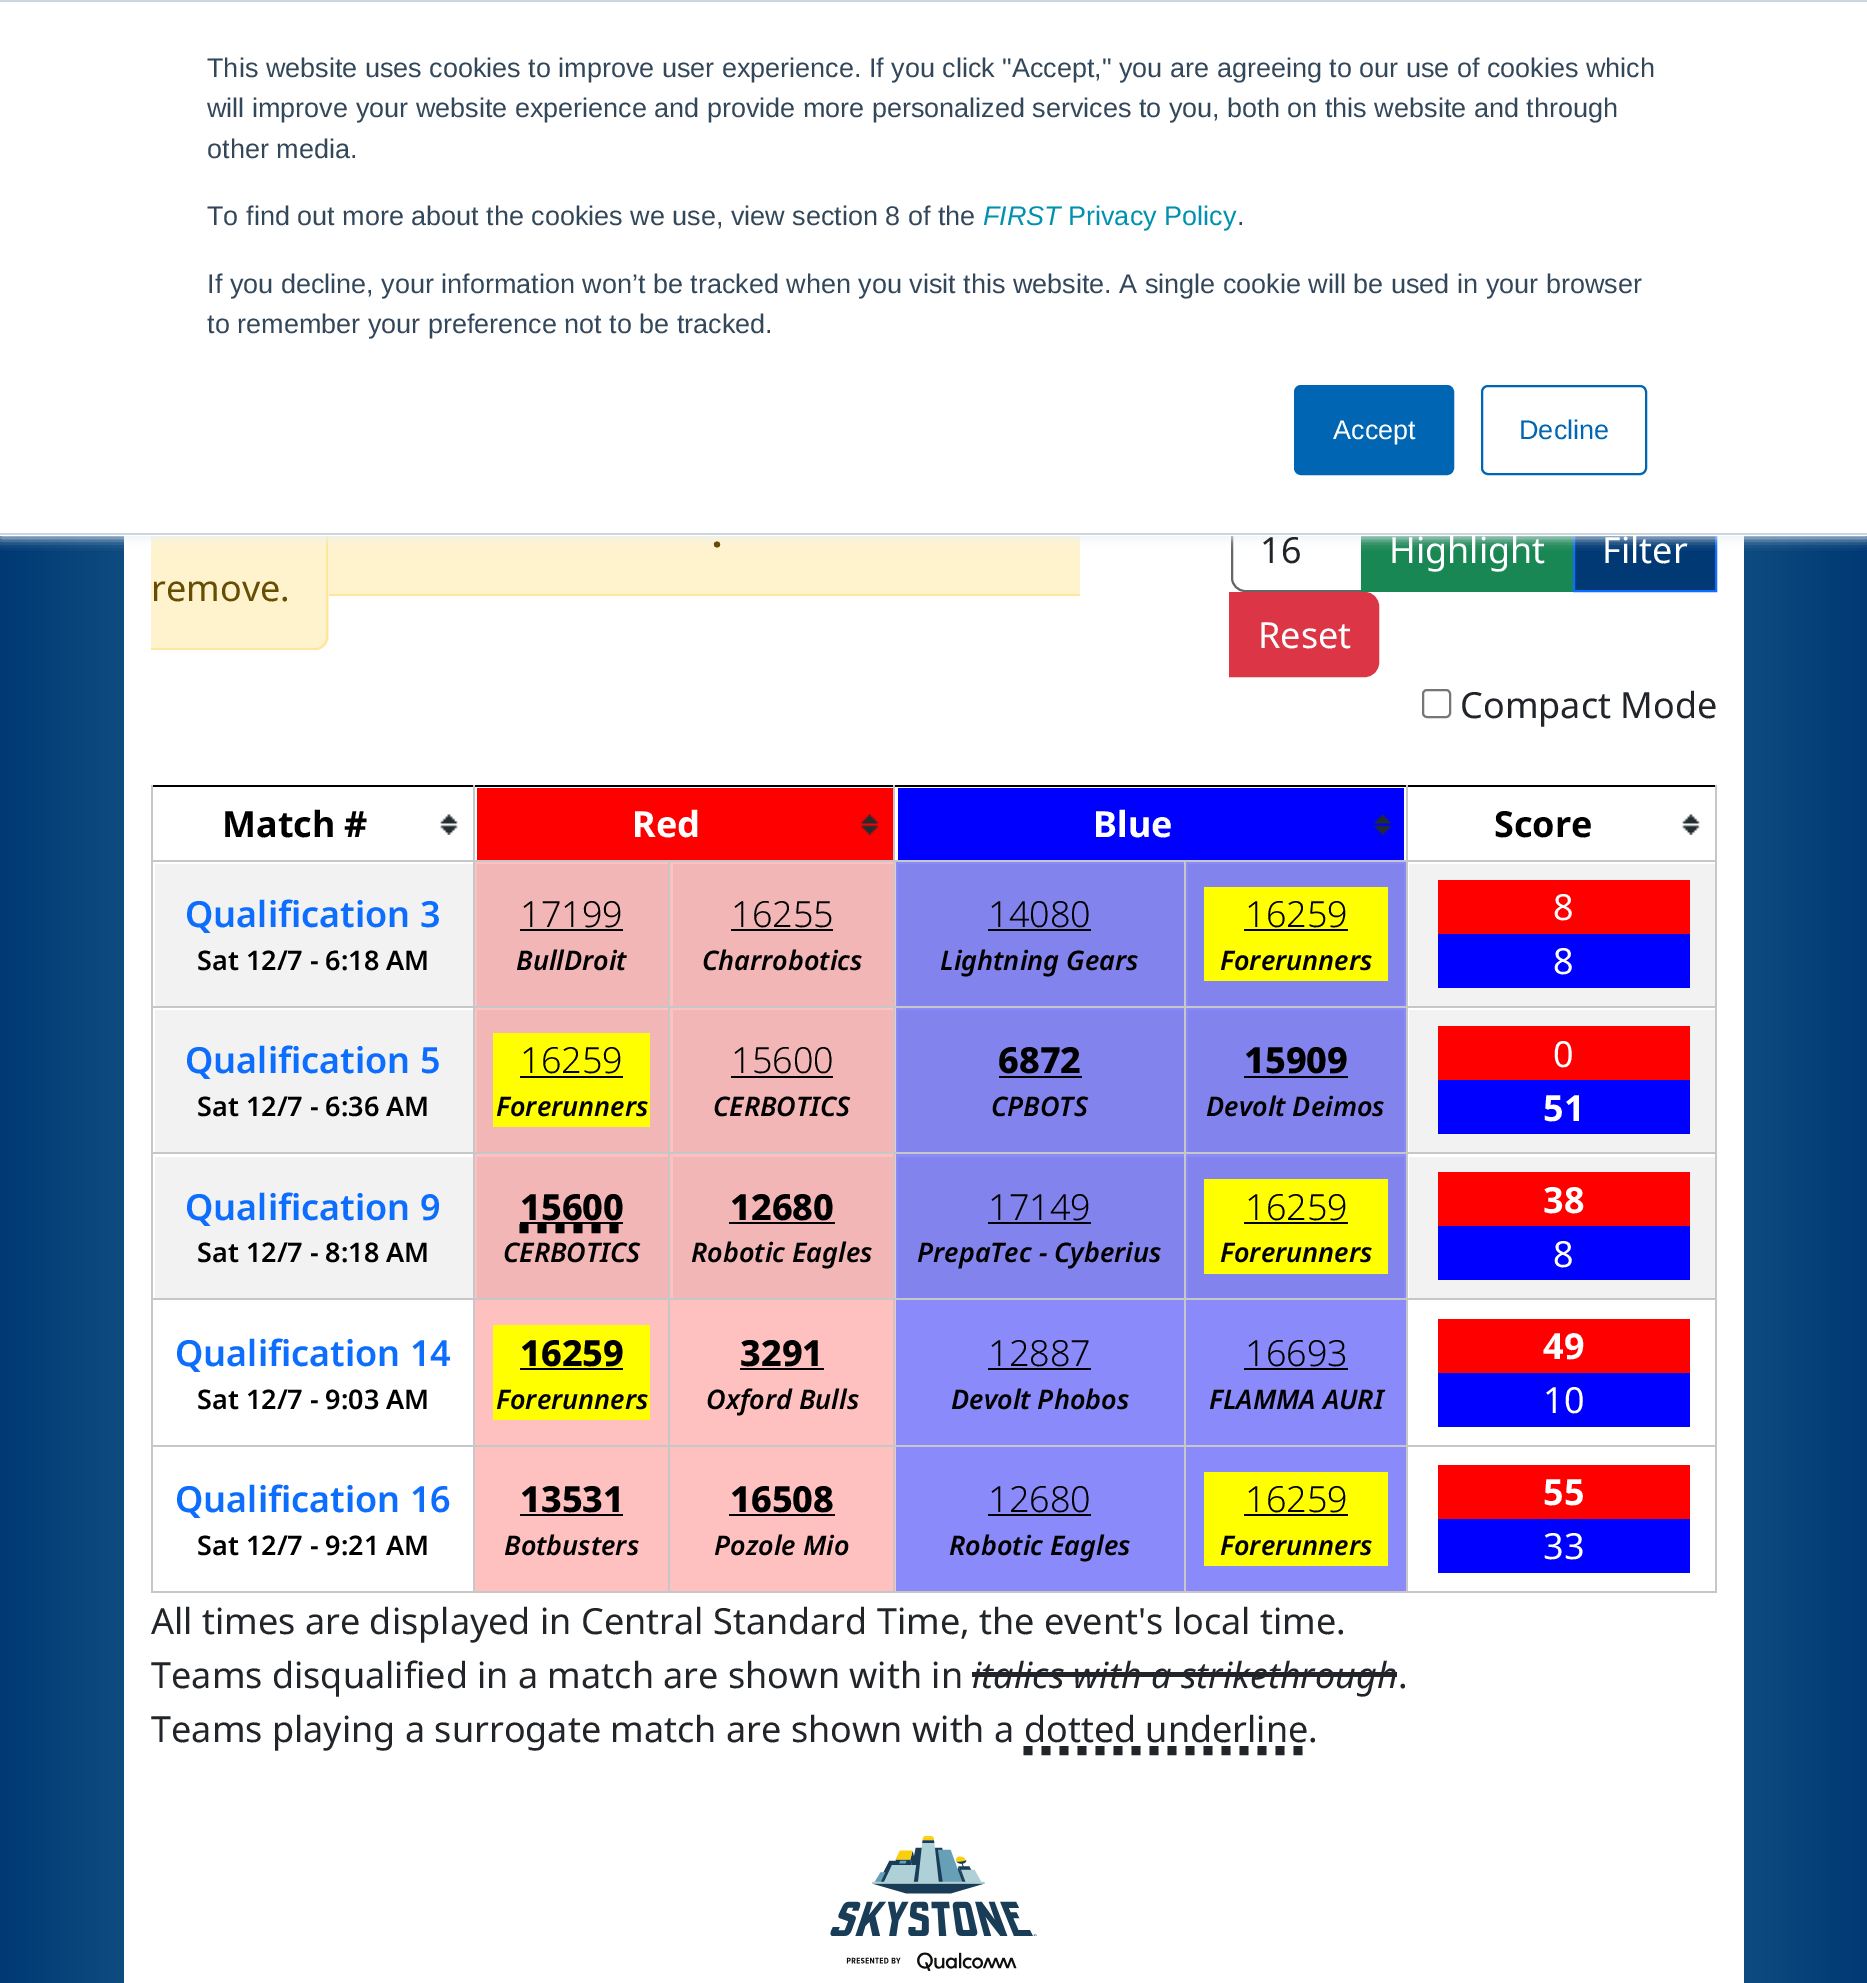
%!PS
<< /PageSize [1867 1983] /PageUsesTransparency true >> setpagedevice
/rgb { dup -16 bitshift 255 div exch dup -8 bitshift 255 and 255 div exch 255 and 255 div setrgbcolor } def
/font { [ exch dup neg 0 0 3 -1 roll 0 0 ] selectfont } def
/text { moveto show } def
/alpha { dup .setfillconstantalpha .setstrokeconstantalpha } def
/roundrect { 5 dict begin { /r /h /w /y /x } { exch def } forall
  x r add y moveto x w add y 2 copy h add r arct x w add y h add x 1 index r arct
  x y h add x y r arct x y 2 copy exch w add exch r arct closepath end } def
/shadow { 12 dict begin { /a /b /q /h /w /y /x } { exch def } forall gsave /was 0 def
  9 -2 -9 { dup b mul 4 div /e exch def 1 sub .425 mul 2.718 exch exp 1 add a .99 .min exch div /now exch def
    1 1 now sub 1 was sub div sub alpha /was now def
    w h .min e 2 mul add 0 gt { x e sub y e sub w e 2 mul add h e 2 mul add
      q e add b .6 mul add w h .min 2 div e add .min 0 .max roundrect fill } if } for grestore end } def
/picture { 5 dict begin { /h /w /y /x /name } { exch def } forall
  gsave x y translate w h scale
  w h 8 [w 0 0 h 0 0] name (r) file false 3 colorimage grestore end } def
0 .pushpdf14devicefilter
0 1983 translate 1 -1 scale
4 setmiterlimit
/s1 { /LiberationSans-Regular 27 font 16#33475B rgb } def
/s2 { /LiberationSans-Italic 27 font 16#0091AE rgb } def
/s3 { /LiberationSans-Regular 27 font 16#0091AE rgb } def
/s4 { /LiberationSans-Regular 27 font 16#FFFFFF rgb } def
/s5 { /LiberationSans-Regular 27 font 16#0066B3 rgb } def
/s6 { /NotoSans-Bold 36 font 16#664D03 rgb } def
/s7 { /NotoSans-Regular 36 font 16#664D03 rgb } def
/s8 { /NotoSans-Regular 36 font 16#212529 rgb } def
/s9 { /NotoSans-Regular 36 font 16#FFFFFF rgb } def
/s10 { /NotoSans-Bold 36 font 16#000000 rgb } def
/s11 { /NotoSans-Bold 36 font 16#FFFFFF rgb } def
/s12 { /NotoSans-SemiBold 36 font 16#0D6EFD rgb } def
/s13 { /NotoSans-SemiBold 27 font 16#000000 rgb } def
/s14 { /NotoSans-Light 36 font 16#000000 rgb } def
/s15 { /NotoSans-SemiBoldItalic 27 font 16#000000 rgb } def
/s16 { /NotoSans-ExtraBold 36 font 16#000000 rgb } def
/s17 { /NotoSans-Italic 36 font 16#212529 rgb } def
16#FFFFFF rgb
0 0 1867 1983 rectfill
gsave 0 536 moveto 1867 536 lineto 1867 1983 lineto 0 1983 lineto closepath clip newpath
<< /ShadingType 2 /ColorSpace /DeviceRGB /Coords [0 1397 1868 1397] /Extend [true true] /Function << /FunctionType 3 /Domain [0 1] /Functions [<< /FunctionType 2 /Domain [0 1] /C0 [0 0.224 0.455] /C1 [0.424 0.761 0.788] /N 1 >> << /FunctionType 2 /Domain [0 1] /C0 [0.424 0.761 0.788] /C1 [0 0.224 0.455] /N 1 >>] /Bounds [0.5] /Encode [0 1 0 1] >> >> shfill grestore
124 536 1620 1447 rectfill
16#FFF3CD rgb
328 536 752 58 rectfill
151 524 moveto 315 524 lineto 322.5 524 329 530.5 329 538 curveto 329 636 lineto 329 643.5 322.5 650 315 650 curveto 151 650 lineto closepath fill
16#FFE69C rgb
151 524 moveto 315 524 lineto 322 524 328 530 328 538 curveto 328 637 lineto 328 644 322 650 315 650 curveto 151 650 lineto closepath 151 526 moveto 315 526 lineto 321 526 326 532 326 538 curveto 326 637 lineto 326 643 321 648 315 648 curveto 151 648 lineto closepath eofill
16#656667 rgb
2 setlinewidth
1245 507 moveto 1363 507 lineto 1363 591 lineto 1245 591 lineto 1238 591 1232 585 1232 578 curveto 1232 520 lineto 1232 513 1238 507 1245 507 curveto closepath stroke
16#198754 rgb
1361 536 212 56 rectfill
16#003974 rgb
1575 536 140 54 rectfill
16#0D6EFD rgb
1574 507 142 84 rectstroke
16#EAF0F6 rgb
0 2 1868 536 0 5.5 1 shadow
16#FFFFFF rgb
0 2 1867 534 rectfill
16#CBD6E2 rgb
0 0 1867 2 rectfill
0 533 1867 2 rectfill
s1
(This website uses cookies to improve user experience. If you click "Accept," you are agreeing to our use of cookies which) 207 77 text
(will improve your website experience and provide more personalized services to you, both on this website and through) 207 117 text
(other media.) 207 158 text
(To find out more about the cookies we use, view section 8 of the) 207 225 text
s2
(FIRST) 983 225 text
s3
(Privacy Policy) 1068 225 text
s1
(.) 1237 225 text
(If you decline, your information won’t be tracked when you visit this website. A single cookie will be used in your browser) 207 293 text
(to remember your preference not to be tracked.) 207 333 text
16#0066B3 rgb
1295 386 158 88 6 roundrect gsave fill grestore
stroke
s4
(Accept) 1333 439 text
16#0066B3 rgb
1482 386 164 88 6 roundrect stroke
(Decline) 1519 439 text
s6
(.) 712 547 text
s7
(remove.) 151 601 text
16#FFE69C rgb
329 594 751 2 rectfill
s8
(16) 1260 563 text
s9
(Highlight) 1389 563 text
(Filter) 1602 563 text
16#DC3545 rgb
1230 593 moveto 1365 593 lineto 1372 593 1378 599 1378 606 curveto 1378 663 lineto 1378 670 1372 676 1365 676 curveto 1230 676 lineto closepath gsave fill grestore
stroke
s9
(Reset) 1258 648 text
16#767676 rgb
1423 690 27 27 4 roundrect stroke
s8
(Compact Mode) 1460 718 text
16#000000 rgb
151 785 1566 2 rectfill
(pic1.raw) 440 814 18 21 picture
s10
(Match #) 222 837 text
16#FF0000 rgb
477 788 416 72 rectfill
(pic2.raw) 861 814 18 21 picture
16#C7C7C7 rgb
1406 860 311 2 rectfill
1406 1006 311 2 rectfill
1406 1152 311 2 rectfill
16#8A8AFB rgb
1186 1154 220 291 rectfill
16#C7C7C7 rgb
1406 1298 311 2 rectfill
1406 1445 311 2 rectfill
1715 1445 2 148 rectfill
1406 1591 311 2 rectfill
1406 1445 2 148 rectfill
1184 1445 225 2 rectfill
1406 1298 2 149 rectfill
1184 1298 225 2 rectfill
1406 1152 2 149 rectfill
1184 1152 225 2 rectfill
1406 1006 2 148 rectfill
1184 1006 225 2 rectfill
1406 860 2 148 rectfill
1184 860 225 2 rectfill
16#FFC0C0 rgb
475 1154 421 147 rectfill
16#8A8AFB rgb
896 1154 288 291 rectfill
16#C7C7C7 rgb
1184 1591 225 2 rectfill
1184 1445 2 148 rectfill
893 1445 293 2 rectfill
1184 1298 2 149 rectfill
893 1298 293 2 rectfill
1184 1152 2 149 rectfill
893 1152 293 2 rectfill
1184 1006 2 148 rectfill
893 1006 293 2 rectfill
1184 860 2 148 rectfill
893 860 293 2 rectfill
16#FFC0C0 rgb
475 862 421 144 rectfill
475 1008 421 144 rectfill
475 1301 421 144 rectfill
475 1447 421 144 rectfill
16#C7C7C7 rgb
893 1591 293 2 rectfill
893 1445 2 148 rectfill
668 1445 228 2 rectfill
893 1298 2 149 rectfill
668 1298 228 2 rectfill
893 1152 2 149 rectfill
668 1152 228 2 rectfill
893 1006 2 148 rectfill
668 1006 228 2 rectfill
893 860 2 148 rectfill
668 860 228 2 rectfill
668 1591 228 2 rectfill
668 1445 2 148 rectfill
473 1445 198 2 rectfill
668 1298 2 149 rectfill
473 1298 198 2 rectfill
668 1152 2 149 rectfill
473 1152 198 2 rectfill
668 1006 2 148 rectfill
473 1006 198 2 rectfill
668 860 2 148 rectfill
473 860 198 2 rectfill
473 1591 198 2 rectfill
473 1445 2 148 rectfill
151 1445 324 2 rectfill
473 1298 2 149 rectfill
151 1298 324 2 rectfill
473 1152 2 149 rectfill
151 1152 324 2 rectfill
473 1006 2 148 rectfill
151 1006 324 2 rectfill
473 860 2 148 rectfill
151 860 324 2 rectfill
473 785 2 77 rectfill
s11
(Red) 632 837 text
16#0000FF rgb
898 788 506 72 rectfill
(pic3.raw) 1374 814 18 21 picture
16#C7C7C7 rgb
893 785 2 77 rectfill
s11
(Blue) 1093 837 text
(pic1.raw) 1682 814 18 21 picture
16#C7C7C7 rgb
1406 785 2 77 rectfill
s10
(Score) 1494 837 text
16#F2F2F2 rgb
155 864 318 142 rectfill
16#C7C7C7 rgb
151 1591 324 2 rectfill
151 1445 2 148 rectfill
151 1298 2 149 rectfill
151 1152 2 149 rectfill
151 1006 2 148 rectfill
151 785 2 223 rectfill
s12
(Qualification 3) 185 927 text
s13
(Sat 12/7 - 6:18 AM) 197 970 text
16#F2B6B6 rgb
477 864 191 142 rectfill
s14
(17199) 520 927 text
520 929 103 2 rectfill
s15
(BullDroit) 516 970 text
16#F2B6B6 rgb
673 864 220 142 rectfill
s14
(16255) 731 927 text
731 929 102 2 rectfill
s15
(Charrobotics) 702 970 text
16#8A8AFB rgb
896 862 288 144 rectfill
16#8383EE rgb
898 864 286 142 rectfill
s14
(14080) 988 927 text
988 929 103 2 rectfill
s15
(Lightning Gears) 940 970 text
16#8A8AFB rgb
1186 862 220 144 rectfill
16#8383EE rgb
1188 864 216 142 rectfill
16#FFFF00 rgb
1204 887 184 94 rectfill
s14
(16259) 1245 927 text
1244 929 104 2 rectfill
s15
(Forerunners) 1220 970 text
16#F2F2F2 rgb
1409 864 306 142 rectfill
16#C7C7C7 rgb
1715 1298 2 149 rectfill
1715 1152 2 149 rectfill
1715 1006 2 148 rectfill
1715 785 2 223 rectfill
16#FF0000 rgb
1438 880 252 54 rectfill
s9
(8) 1553 920 text
16#0000FF rgb
1438 934 252 54 rectfill
s9
(8) 1553 974 text
16#F2F2F2 rgb
155 1010 318 142 rectfill
s12
(Qualification 5) 185 1073 text
s13
(Sat 12/7 - 6:36 AM) 197 1116 text
16#F2B6B6 rgb
477 1010 191 142 rectfill
16#FFFF00 rgb
493 1033 157 94 rectfill
s14
(16259) 520 1073 text
520 1076 103 2 rectfill
s15
(Forerunners) 496 1116 text
16#F2B6B6 rgb
673 1010 220 142 rectfill
s14
(15600) 731 1073 text
731 1076 102 2 rectfill
s15
(CERBOTICS) 713 1116 text
16#8A8AFB rgb
896 1008 288 144 rectfill
16#8383EE rgb
898 1010 286 142 rectfill
s16
(6872) 998 1073 text
999 1076 83 2 rectfill
s15
(CPBOTS) 991 1116 text
16#8A8AFB rgb
1186 1008 220 144 rectfill
16#8383EE rgb
1188 1010 216 142 rectfill
s16
(15909) 1244 1073 text
1244 1076 104 2 rectfill
s15
(Devolt Deimos) 1206 1116 text
16#F2F2F2 rgb
1409 1010 306 142 rectfill
16#FF0000 rgb
1438 1026 252 54 rectfill
s9
(0) 1553 1067 text
16#0000FF rgb
1438 1080 252 54 rectfill
s11
(51) 1543 1121 text
16#F2F2F2 rgb
155 1157 318 141 rectfill
s12
(Qualification 9) 185 1220 text
s13
(Sat 12/7 - 8:18 AM) 197 1262 text
16#F2B6B6 rgb
477 1157 191 141 rectfill
s16
(15600) 520 1220 text
520 1222 103 2 rectfill
9 setlinewidth
[9 9] 0 setdash
519.5 1228.5 moveto 623.5 1228.5 lineto stroke
s15
(CERBOTICS) 503 1262 text
16#F2B6B6 rgb
673 1157 220 141 rectfill
s16
(12680) 730 1220 text
729 1222 106 2 rectfill
s15
(Robotic Eagles) 691 1262 text
16#8383EE rgb
898 1157 286 141 rectfill
s14
(17149) 988 1220 text
988 1222 103 2 rectfill
s15
(PrepaTec - Cyberius) 917 1262 text
16#8383EE rgb
1188 1157 216 141 rectfill
16#FFFF00 rgb
1204 1179 184 95 rectfill
s14
(16259) 1245 1220 text
1244 1222 104 2 rectfill
s15
(Forerunners) 1220 1262 text
16#F2F2F2 rgb
1409 1157 306 141 rectfill
16#FF0000 rgb
1438 1172 252 54 rectfill
s11
(38) 1543 1213 text
16#0000FF rgb
1438 1226 252 54 rectfill
s9
(8) 1553 1267 text
s12
(Qualification 14) 175 1366 text
s13
(Sat 12/7 - 9:03 AM) 197 1409 text
16#FFFF00 rgb
493 1325 157 95 rectfill
s16
(16259) 520 1366 text
520 1368 103 2 rectfill
s15
(Forerunners) 496 1409 text
s16
(3291) 740 1366 text
740 1368 84 2 rectfill
s15
(Oxford Bulls) 706 1409 text
s14
(12887) 988 1366 text
988 1368 103 2 rectfill
s15
(Devolt Phobos) 951 1409 text
s14
(16693) 1245 1366 text
1244 1368 104 2 rectfill
s15
(FLAMMA AURI) 1209 1409 text
16#FF0000 rgb
1438 1319 252 54 rectfill
s11
(49) 1543 1359 text
16#0000FF rgb
1438 1373 252 54 rectfill
s9
(10) 1543 1413 text
s12
(Qualification 16) 175 1512 text
s13
(Sat 12/7 - 9:21 AM) 197 1555 text
s16
(13531) 520 1512 text
520 1514 103 2 rectfill
s15
(Botbusters) 504 1555 text
s16
(16508) 730 1512 text
729 1514 106 2 rectfill
s15
(Pozole Mio) 714 1555 text
16#8A8AFB rgb
896 1447 288 144 rectfill
s14
(12680) 988 1512 text
988 1514 103 2 rectfill
s15
(Robotic Eagles) 949 1555 text
16#8A8AFB rgb
1186 1447 220 144 rectfill
16#FFFF00 rgb
1204 1472 184 94 rectfill
s14
(16259) 1245 1512 text
1244 1514 104 2 rectfill
s15
(Forerunners) 1220 1555 text
16#FF0000 rgb
1438 1465 252 54 rectfill
s11
(55) 1543 1505 text
16#0000FF rgb
1438 1519 252 54 rectfill
s9
(33) 1543 1559 text
s8
(All times are displayed in Central Standard Time, the event's local time.) 151 1634 text
(Teams disqualified in a match are shown with in) 151 1688 text
s17
(italics with a strikethrough) 972 1688 text
972 1672 425 5 rectfill
s8
(.) 1398 1688 text
(Teams playing a surrogate match are shown with a dotted underline.) 151 1742 text
1023.5 1750.5 moveto 1308 1750.5 lineto stroke
(pic4.raw) 830 1836 207 135 picture
.poppdf14devicefilter showpage
